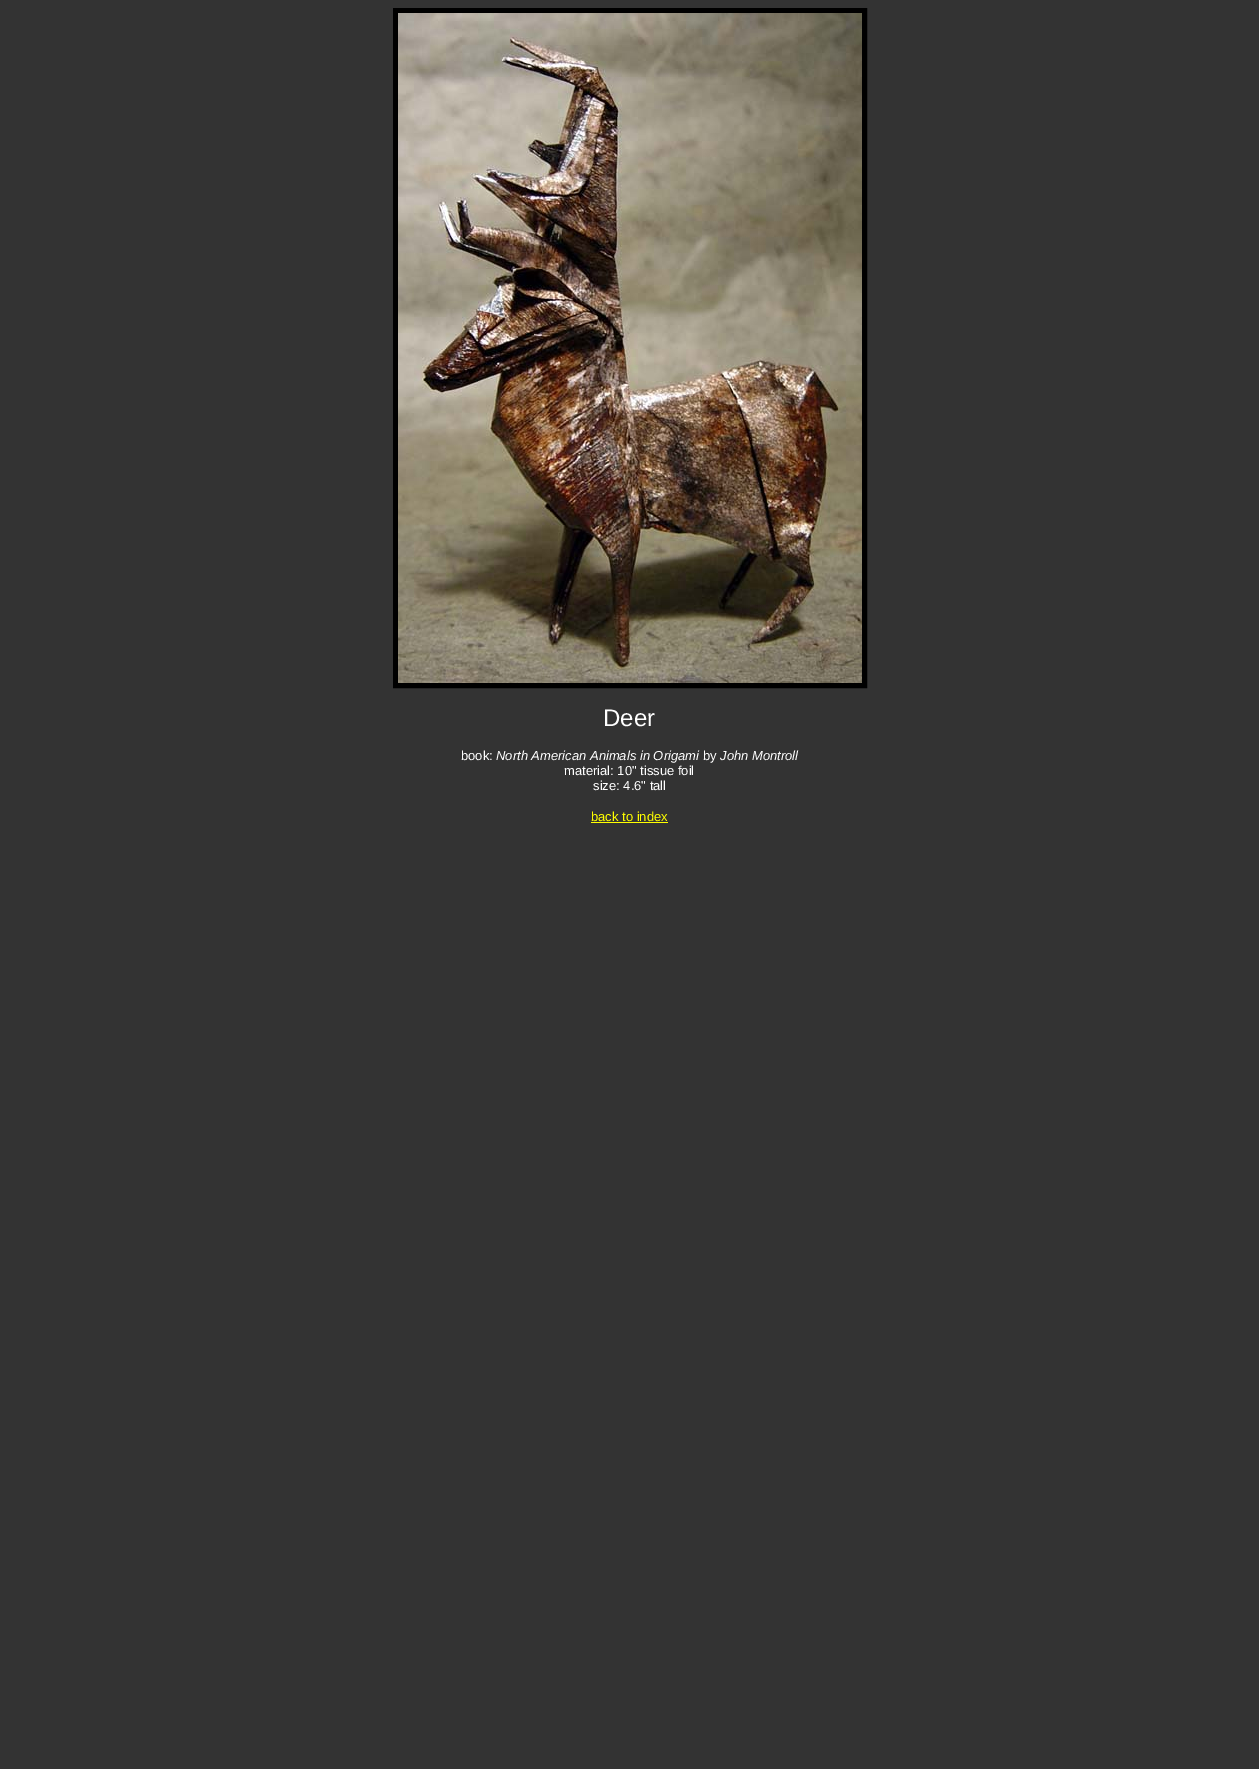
%!PS
<< /PageSize [1259 1769] >> setpagedevice
/rgb { dup -16 bitshift 255 div exch dup -8 bitshift 255 and 255 div exch 255 and 255 div setrgbcolor } def
/font { [ exch dup neg 0 0 3 -1 roll 0 0 ] selectfont } def
/text { moveto show } def
/picture { 5 dict begin { /h /w /y /x /name } { exch def } forall
  gsave x y translate w h scale
  w h 8 [w 0 0 h 0 0] name (r) file false 3 colorimage grestore end } def
0 1769 translate 1 -1 scale
4 setmiterlimit
/s1 { /LiberationSans-Regular 24 font 16#FFFFFF rgb } def
/s2 { /LiberationSans-Regular 13 font 16#FFFFFF rgb } def
/s3 { /LiberationSans-Italic 13 font 16#FFFFFF rgb } def
/s4 { /LiberationSans-Regular 13 font 16#FFFF00 rgb } def
16#333333 rgb
0 0 1259 1769 rectfill
16#000000 rgb
5 setlinewidth
395.5 10.5 469 675 rectstroke
(pic1.raw) 398 13 464 670 picture
s1
(Deer) 603 726 text
s2
(book:) 461 760 text
s3
(North American Animals in Origami) 496 760 text
s2
(by) 703 760 text
s3
(John Montroll) 720 760 text
s2
(material: 10" tissue foil) 564 775 text
(size: 4.6" tall) 593 790 text
s4
(back to index) 591 821 text
591 822 77 1 rectfill
showpage
